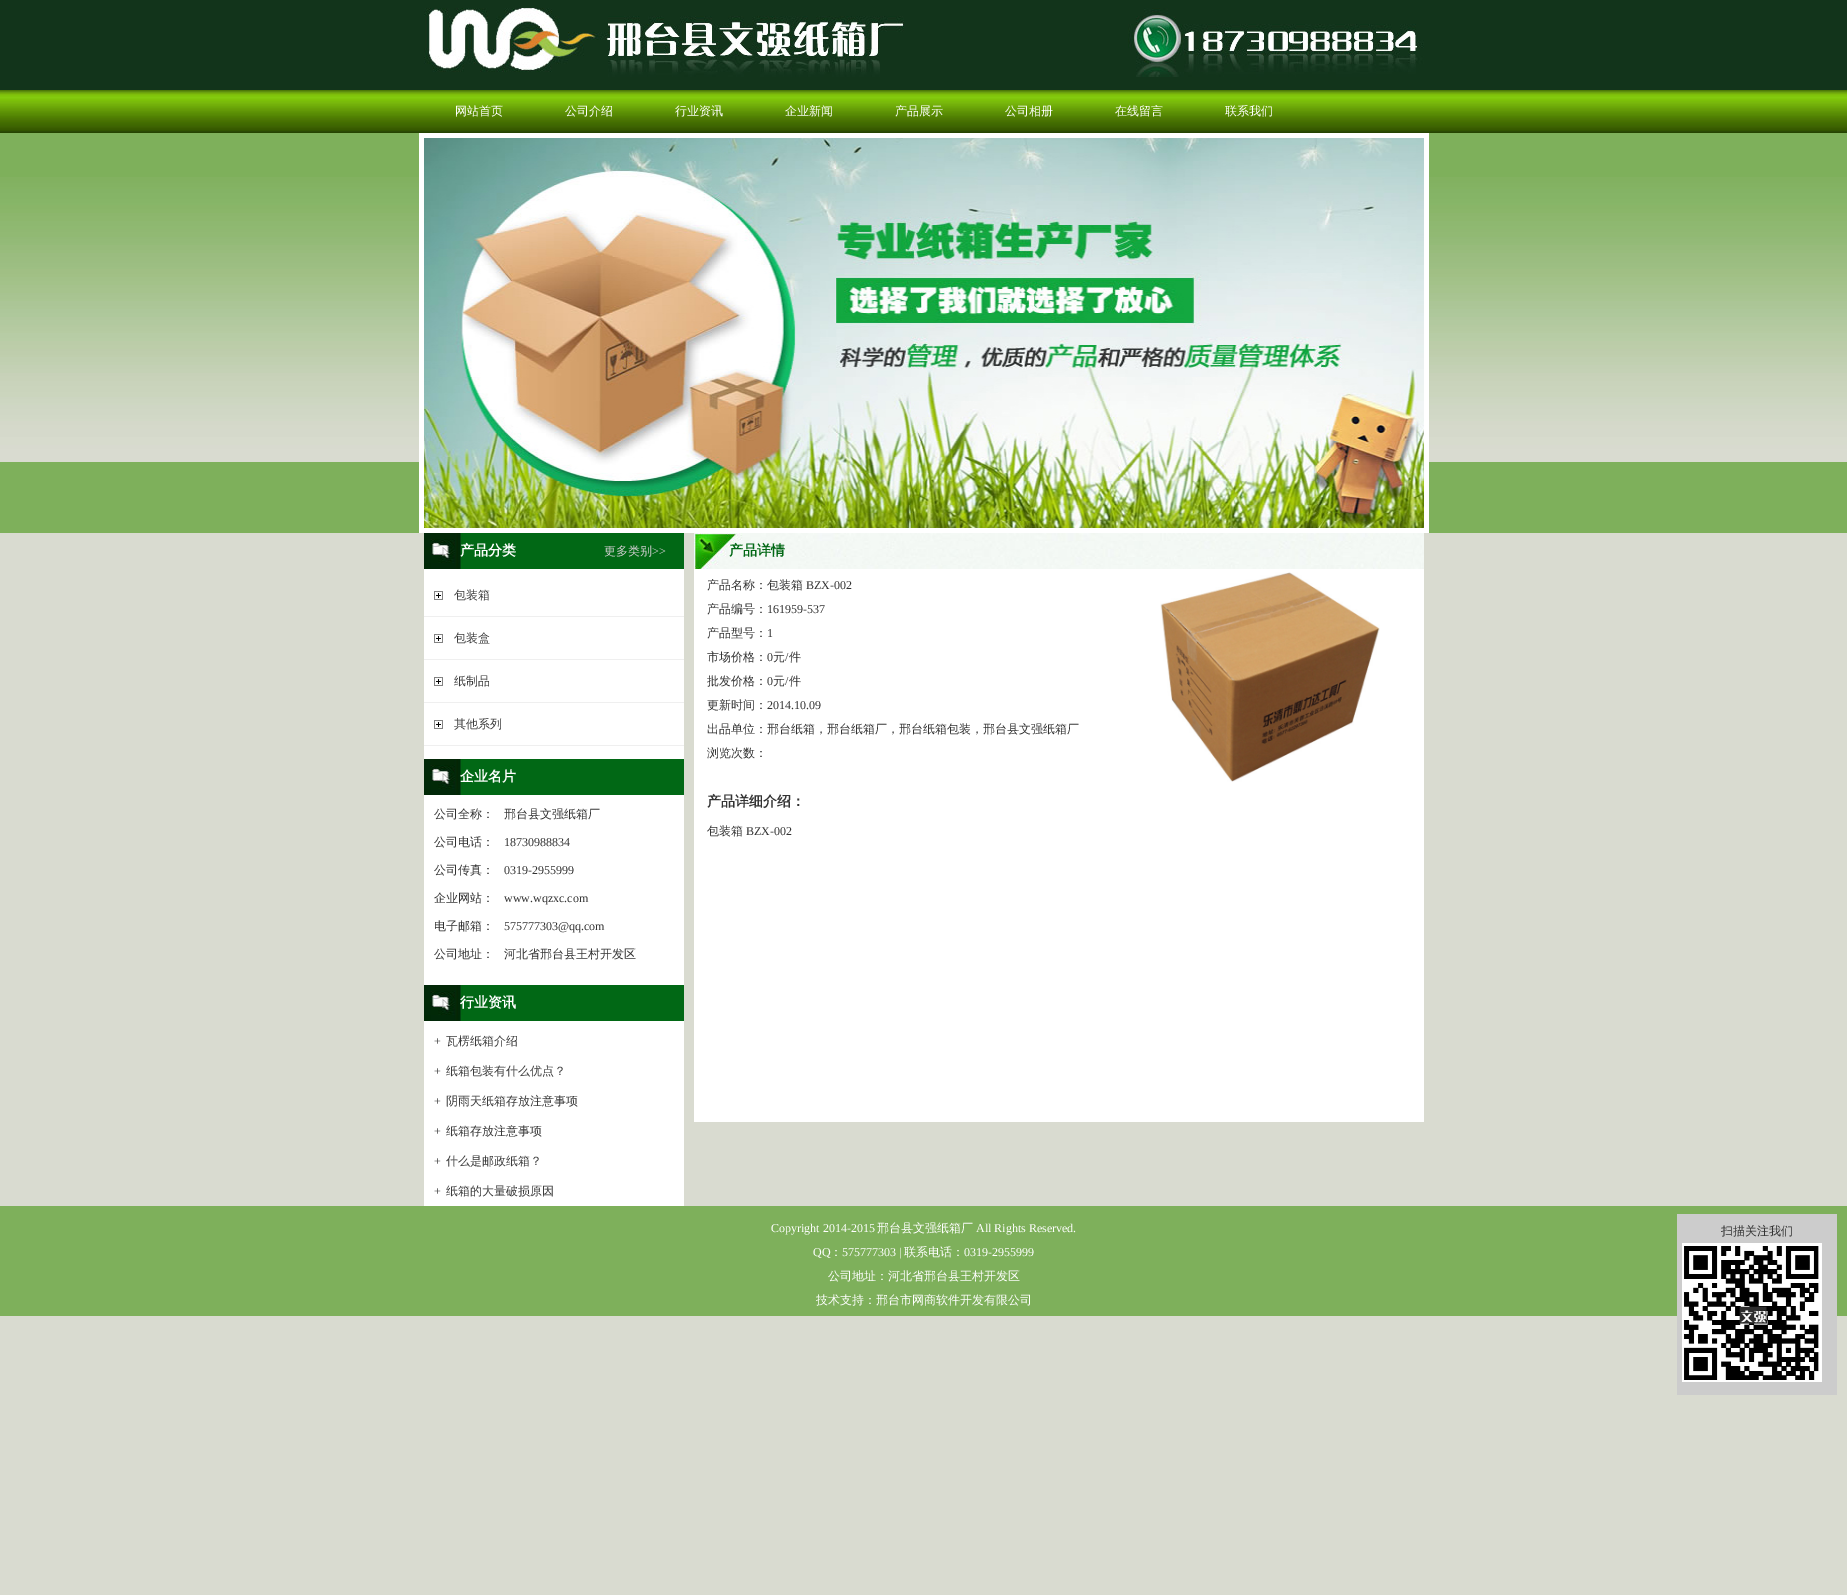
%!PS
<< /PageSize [1847 1595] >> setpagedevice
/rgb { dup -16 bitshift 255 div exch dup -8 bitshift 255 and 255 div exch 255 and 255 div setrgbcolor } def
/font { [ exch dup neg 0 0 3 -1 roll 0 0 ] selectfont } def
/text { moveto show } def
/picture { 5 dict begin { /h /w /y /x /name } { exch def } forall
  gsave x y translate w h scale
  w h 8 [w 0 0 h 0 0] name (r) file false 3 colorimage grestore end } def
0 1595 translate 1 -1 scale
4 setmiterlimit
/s1 { /WenQuanYiZenHei-Medium 12 font 16#FFFFFF rgb } def
/s2 { /WenQuanYiZenHei-Bold 14 font 16#FFFFFF rgb } def
/s3 { /WenQuanYiZenHei-Medium 12 font 16#CCCCCC rgb } def
/s4 { /LiberationSerif-Regular 12 font 16#CCCCCC rgb } def
/s5 { /WenQuanYiZenHei-Medium 12 font 16#3C3C3C rgb } def
/s6 { /WenQuanYiZenHei-Medium 12 font 16#333333 rgb } def
/s7 { /LiberationSerif-Regular 12 font 16#333333 rgb } def
/s8 { /LiberationSerif-Regular 12 font 16#3C3C3C rgb } def
/s9 { /WenQuanYiZenHei-Bold 14 font 16#026815 rgb } def
/s10 { /WenQuanYiZenHei-Bold 14 font 16#333333 rgb } def
/s11 { /LiberationSerif-Regular 12 font 16#FFFFFF rgb } def
16#D9DBD0 rgb
0 0 1847 1595 rectfill
16#12341B rgb
0 0 1847 90 rectfill
(pic1.raw) 424 8 1000 69 picture
(pic2.raw) 0 90 1847 43 picture
s1
(网站首页) 455 115 text
(公司介绍) 565 115 text
(行业资讯) 675 115 text
(企业新闻) 785 115 text
(产品展示) 895 115 text
(公司相册) 1005 115 text
(在线留言) 1115 115 text
(联系我们) 1225 115 text
16#7EB05B rgb
0 133 1847 400 rectfill
(pic3.raw) 0 177 1847 285 picture
16#FFFFFF rgb
419 133 1010 400 rectfill
(pic4.raw) 424 138 1000 390 picture
424 569 260 637 rectfill
(pic5.raw) 424 533 260 36 picture
s2
(产品分类) 460 555 text
s3
(更多类别) 604 555 text
s4
(>>) 652 555 text
(pic6.raw) 434 591 9 9 picture
16#EFEFEF rgb
424 616 260 1 rectfill
s5
(包装箱) 454 599 text
(pic6.raw) 434 634 9 9 picture
16#EFEFEF rgb
424 659 260 1 rectfill
s5
(包装盒) 454 642 text
(pic6.raw) 434 677 9 9 picture
16#EFEFEF rgb
424 702 260 1 rectfill
s5
(纸制品) 454 685 text
(pic6.raw) 434 720 9 9 picture
16#EFEFEF rgb
424 745 260 1 rectfill
s5
(其他系列) 454 728 text
(pic5.raw) 424 759 260 36 picture
s2
(企业名片) 460 781 text
s6
(公司全称：) 434 818 text
(邢台县文强纸箱厂) 504 818 text
(公司电话：) 434 846 text
s7
(18730988834) 504 846 text
s6
(公司传真：) 434 874 text
s7
(0319-2955999) 504 874 text
s6
(企业网站：) 434 902 text
s7
(www.wqzxc.com) 504 902 text
s6
(电子邮箱：) 434 930 text
s7
(575777303@qq.com) 504 930 text
s6
(公司地址：) 434 958 text
(河北省邢台县王村开发区) 504 958 text
(pic5.raw) 424 985 260 36 picture
s2
(行业资讯) 460 1007 text
s8
(+) 434 1045 text
s5
(瓦楞纸箱介绍) 446 1045 text
s8
(+) 434 1075 text
s5
(纸箱包装有什么优点？) 446 1075 text
s8
(+) 434 1105 text
s5
(阴雨天纸箱存放注意事项) 446 1105 text
s8
(+) 434 1135 text
s5
(纸箱存放注意事项) 446 1135 text
s8
(+) 434 1165 text
s5
(什么是邮政纸箱？) 446 1165 text
s8
(+) 434 1195 text
s5
(纸箱的大量破损原因) 446 1195 text
16#FFFFFF rgb
694 569 730 553 rectfill
(pic7.raw) 694 533 664 36 picture
s9
(产品详情) 729 555 text
(pic8.raw) 1358 533 66 36 picture
s6
(产品名称：包装箱) 707 589 text
s7
(BZX-002) 806 589 text
s6
(产品编号：) 707 613 text
s7
(161959-537) 767 613 text
s6
(产品型号：) 707 637 text
s7
(1) 767 637 text
s6
(市场价格：) 707 661 text
s7
(0) 767 661 text
s6
(元) 773 661 text
s7
(/) 785 661 text
s6
(件) 789 661 text
(批发价格：) 707 685 text
s7
(0) 767 685 text
s6
(元) 773 685 text
s7
(/) 785 685 text
s6
(件) 789 685 text
(更新时间：) 707 709 text
s7
(2014.10.09) 767 709 text
s6
(出品单位：邢台纸箱，邢台纸箱厂，邢台纸箱包装，邢台县文强纸箱厂) 707 733 text
(浏览次数：) 707 757 text
(pic9.raw) 1160 572 220 210 picture
s10
(产品详细介绍：) 707 806 text
s6
(包装箱) 707 835 text
s7
(BZX-002) 746 835 text
16#7EB05B rgb
0 1206 1847 110 rectfill
s11
(Copyright 2014-2015) 771 1232 text
s1
(邢台县文强纸箱厂) 877 1232 text
s11
(All Rights Reserved.) 976 1232 text
(QQ) 813 1256 text
s1
(：) 830 1256 text
s11
(575777303 |) 842 1256 text
s1
(联系电话：) 904 1256 text
s11
(0319-2955999) 964 1256 text
s1
(公司地址：河北省邢台县王村开发区) 828 1280 text
(技术支持：邢台市网商软件开发有限公司) 816 1304 text
16#CCCCCC rgb
1677 1214 160 181 rectfill
s6
(扫描关注我们) 1721 1235 text
(pic10.raw) 1682 1243 140 139 picture
showpage
